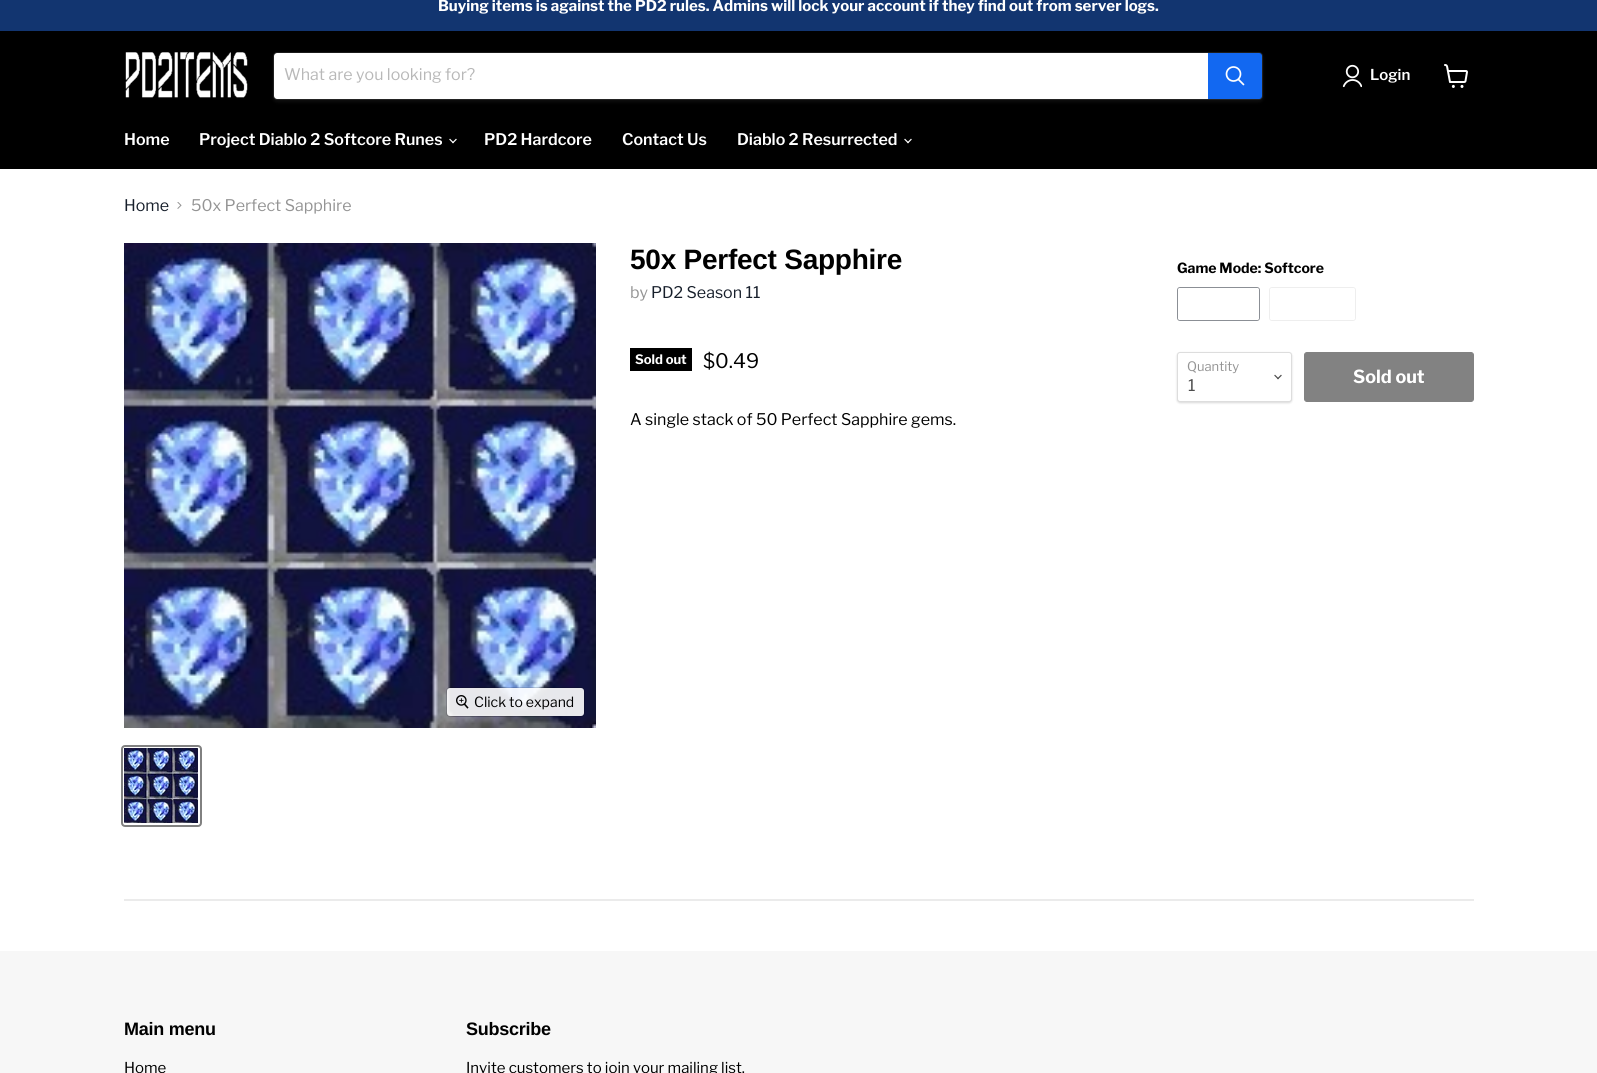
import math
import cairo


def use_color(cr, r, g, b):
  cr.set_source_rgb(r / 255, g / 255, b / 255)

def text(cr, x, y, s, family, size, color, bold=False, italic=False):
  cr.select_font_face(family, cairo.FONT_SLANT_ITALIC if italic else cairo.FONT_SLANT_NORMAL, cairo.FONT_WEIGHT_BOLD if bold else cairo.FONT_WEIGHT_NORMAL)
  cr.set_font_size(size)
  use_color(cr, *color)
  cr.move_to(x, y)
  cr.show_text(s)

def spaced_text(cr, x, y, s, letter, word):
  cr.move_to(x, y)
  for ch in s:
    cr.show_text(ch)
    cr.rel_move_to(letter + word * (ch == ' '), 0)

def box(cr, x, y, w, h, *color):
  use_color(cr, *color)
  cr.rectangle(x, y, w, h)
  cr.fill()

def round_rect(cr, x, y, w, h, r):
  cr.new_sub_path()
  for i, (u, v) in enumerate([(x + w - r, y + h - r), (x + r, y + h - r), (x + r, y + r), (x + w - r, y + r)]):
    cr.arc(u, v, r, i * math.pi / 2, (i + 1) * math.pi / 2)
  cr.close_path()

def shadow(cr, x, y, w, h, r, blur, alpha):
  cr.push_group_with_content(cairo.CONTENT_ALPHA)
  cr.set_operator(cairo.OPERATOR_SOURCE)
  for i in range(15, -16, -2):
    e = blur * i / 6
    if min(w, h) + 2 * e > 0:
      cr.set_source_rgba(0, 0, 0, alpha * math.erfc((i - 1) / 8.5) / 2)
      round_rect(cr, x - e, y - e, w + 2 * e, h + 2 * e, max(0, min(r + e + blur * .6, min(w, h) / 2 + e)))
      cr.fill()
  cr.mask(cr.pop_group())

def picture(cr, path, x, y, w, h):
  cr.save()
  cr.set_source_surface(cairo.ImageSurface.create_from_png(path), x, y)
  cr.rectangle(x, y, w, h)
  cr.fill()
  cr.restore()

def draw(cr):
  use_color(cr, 255, 255, 255)
  cr.paint()
  box(cr, 0, 0, 1597, 31, 18, 53, 112)
  box(cr, 0, 31, 1597, 138, 0, 0, 0)
  picture(cr, "img_01.png", 125, 52, 123, 46)
  use_color(cr, 128, 128, 128)
  shadow(cr, 273, 54, 990, 48, 4, 1.5, 0.11)
  round_rect(cr, 273.5, 52.5, 989, 47, 3.5)
  cr.set_source_rgba(0.502, 0.502, 0.502, 0.2)
  cr.set_line_width(1)
  cr.stroke()
  use_color(cr, 255, 255, 255)
  cr.new_path()
  cr.move_to(277, 53)
  cr.line_to(1208, 53)
  cr.line_to(1208, 99)
  cr.line_to(277, 99)
  cr.curve_to(275.5, 99, 274, 97.5, 274, 96)
  cr.line_to(274, 56)
  cr.curve_to(274, 54.5, 275.5, 53, 277, 53)
  cr.close_path()
  cr.fill()
  use_color(cr, 18, 104, 241)
  cr.new_path()
  cr.move_to(1208.5, 53.5)
  cr.line_to(1259, 53.5)
  cr.curve_to(1260.5, 53.5, 1261.5, 54.5, 1261.5, 56)
  cr.line_to(1261.5, 96)
  cr.curve_to(1261.5, 97.5, 1260.5, 98.5, 1259, 98.5)
  cr.line_to(1208.5, 98.5)
  cr.close_path()
  cr.fill_preserve()
  cr.stroke()
  cr.new_path()
  cr.move_to(1243.5, 84.5)
  cr.line_to(1238.5, 79.5)
  use_color(cr, 255, 255, 255)
  cr.set_line_width(1.7)
  cr.set_line_cap(cairo.LINE_CAP_ROUND)
  cr.stroke()
  cr.arc(1233.5, 74, 7, 0, 2 * math.pi)
  cr.set_line_cap(cairo.LINE_CAP_BUTT)
  cr.stroke()
  picture(cr, "img_02.png", 1342, 64, 20, 24)
  picture(cr, "img_03.png", 1444, 64, 24, 24)
  picture(cr, "img_04.png", 449, 138, 8, 6)
  picture(cr, "img_04.png", 904, 138, 8, 6)
  picture(cr, "img_05.png", 177, 202, 5, 7)
  box(cr, 630, 348, 62, 23, 0, 0, 0)
  round_rect(cr, 1177.5, 287.5, 82, 33, 2.5)
  use_color(cr, 139, 143, 149)
  cr.set_line_width(1)
  cr.stroke()
  use_color(cr, 255, 255, 255)
  cr.new_path()
  cr.move_to(1180, 288)
  cr.curve_to(1179, 288, 1178, 289, 1178, 290)
  cr.line_to(1178, 318)
  cr.curve_to(1178, 319, 1179, 320, 1180, 320)
  cr.line_to(1257, 320)
  cr.curve_to(1258, 320, 1259, 319, 1259, 318)
  cr.line_to(1259, 290)
  cr.curve_to(1259, 289, 1258, 288, 1257, 288)
  cr.close_path()
  cr.fill()
  round_rect(cr, 1269.5, 287.5, 86, 33, 2.5)
  use_color(cr, 238, 238, 238)
  cr.stroke()
  use_color(cr, 255, 255, 255)
  cr.new_path()
  cr.move_to(1272, 288)
  cr.curve_to(1271, 288, 1270, 289, 1270, 290)
  cr.line_to(1270, 318)
  cr.curve_to(1270, 319, 1271, 320, 1272, 320)
  cr.line_to(1353, 320)
  cr.curve_to(1354, 320, 1355, 319, 1355, 318)
  cr.line_to(1355, 290)
  cr.curve_to(1355, 289, 1354, 288, 1353, 288)
  cr.close_path()
  cr.fill()
  use_color(cr, 0, 0, 0)
  shadow(cr, 1177, 353, 115, 50, 3, 1, 0.15)
  use_color(cr, 255, 255, 255)
  round_rect(cr, 1177.5, 352.5, 114, 49, 2.5)
  cr.fill_preserve()
  use_color(cr, 221, 221, 221)
  cr.stroke()
  picture(cr, "img_06.png", 1274, 374, 8, 6)
  use_color(cr, 130, 130, 130)
  round_rect(cr, 1304.5, 352.5, 169, 49, 2.5)
  cr.fill_preserve()
  cr.stroke()
  picture(cr, "img_07.png", 124, 243, 472, 485)
  round_rect(cr, 446.5, 687.5, 138, 29, 3.5)
  cr.set_source_rgba(0, 0, 0, 0.15)
  cr.stroke()
  cr.set_source_rgba(1, 1, 1, 0.9)
  round_rect(cr, 447, 688, 137, 28, 3)
  cr.fill()
  picture(cr, "img_08.png", 456, 695, 13, 14)
  round_rect(cr, 122, 746, 79, 80, 3)
  use_color(cr, 129, 129, 129)
  cr.set_line_width(2)
  cr.stroke()
  picture(cr, "img_09.png", 124, 748, 74, 75)
  box(cr, 124, 899, 1350, 2, 235, 235, 235)
  box(cr, 0, 951, 1597, 122, 247, 247, 247)
  text(cr, 438, 11, "Buying items is against the PD2 rules. Admins will lock your account if they find out from server logs.", "Libre Franklin", 15, (255, 255, 255), bold=True)
  text(cr, 284, 80, "What are you looking for?", "Libre Franklin", 16, (184, 184, 184))
  text(cr, 1370, 80, "Login", "Libre Franklin SemiBold", 15, (255, 255, 255))
  text(cr, 124, 145, "Home", "Libre Franklin SemiBold", 16, (255, 255, 255))
  text(cr, 199, 145, "Project Diablo 2 Softcore Runes", "Libre Franklin SemiBold", 16, (255, 255, 255))
  text(cr, 484, 145, "PD2 Hardcore", "Libre Franklin SemiBold", 16, (255, 255, 255))
  text(cr, 622, 145, "Contact Us", "Libre Franklin SemiBold", 16, (255, 255, 255))
  text(cr, 737, 145, "Diablo 2 Resurrected", "Libre Franklin SemiBold", 16, (255, 255, 255))
  text(cr, 124, 211, "Home", "Libre Franklin", 16, (23, 31, 43))
  text(cr, 191, 211, "50x Perfect Sapphire", "Libre Franklin", 16, (148, 148, 148))
  cr.select_font_face("Arimo", cairo.FONT_SLANT_NORMAL, cairo.FONT_WEIGHT_BOLD)
  cr.set_font_size(28)
  use_color(cr, 0, 0, 0)
  spaced_text(cr, 630, 269, "50x Perfect Sapphire", -0.25, 0)
  text(cr, 630, 298, "by", "Libre Franklin", 16, (148, 148, 148))
  text(cr, 651, 298, "PD2 Season 11", "Libre Franklin", 16, (23, 31, 43))
  text(cr, 635, 364, "Sold out", "Libre Franklin", 13, (255, 255, 255), bold=True)
  text(cr, 703, 368, "$0.49", "Libre Franklin", 20, (0, 0, 0))
  text(cr, 630, 425, "A single stack of 50 Perfect Sapphire gems.", "Libre Franklin", 16, (0, 0, 0))
  text(cr, 1177, 273, "Game Mode: Softcore", "Libre Franklin", 14, (0, 0, 0), bold=True)
  text(cr, 1187, 371, "Quantity", "Libre Franklin", 13, (148, 148, 148))
  text(cr, 1188, 391, "1", "Libre Franklin", 16, (77, 77, 77))
  text(cr, 1353, 383, "Sold out", "Libre Franklin", 18, (255, 255, 255), bold=True)
  text(cr, 474, 707, "Click to expand", "Libre Franklin", 14, (0, 0, 0))
  cr.select_font_face("Arimo", cairo.FONT_SLANT_NORMAL, cairo.FONT_WEIGHT_BOLD)
  cr.set_font_size(18)
  spaced_text(cr, 124, 1035, "Main menu", -0.25, 0)
  text(cr, 124, 1073, "Home", "Libre Franklin", 15, (0, 0, 0))
  cr.select_font_face("Arimo", cairo.FONT_SLANT_NORMAL, cairo.FONT_WEIGHT_BOLD)
  cr.set_font_size(18)
  spaced_text(cr, 466, 1035, "Subscribe", -0.25, 0)
  text(cr, 466, 1073, "Invite customers to join your mailing list.", "Libre Franklin", 15, (0, 0, 0))


surface = cairo.ImageSurface(cairo.FORMAT_RGB24, 1597, 1073)
cr = cairo.Context(surface)
options = cairo.FontOptions()
options.set_hint_metrics(cairo.HINT_METRICS_OFF)
options.set_hint_style(cairo.HINT_STYLE_NONE)
cr.set_font_options(options)
cr.set_miter_limit(4)
draw(cr)
surface.write_to_png("out.png")
